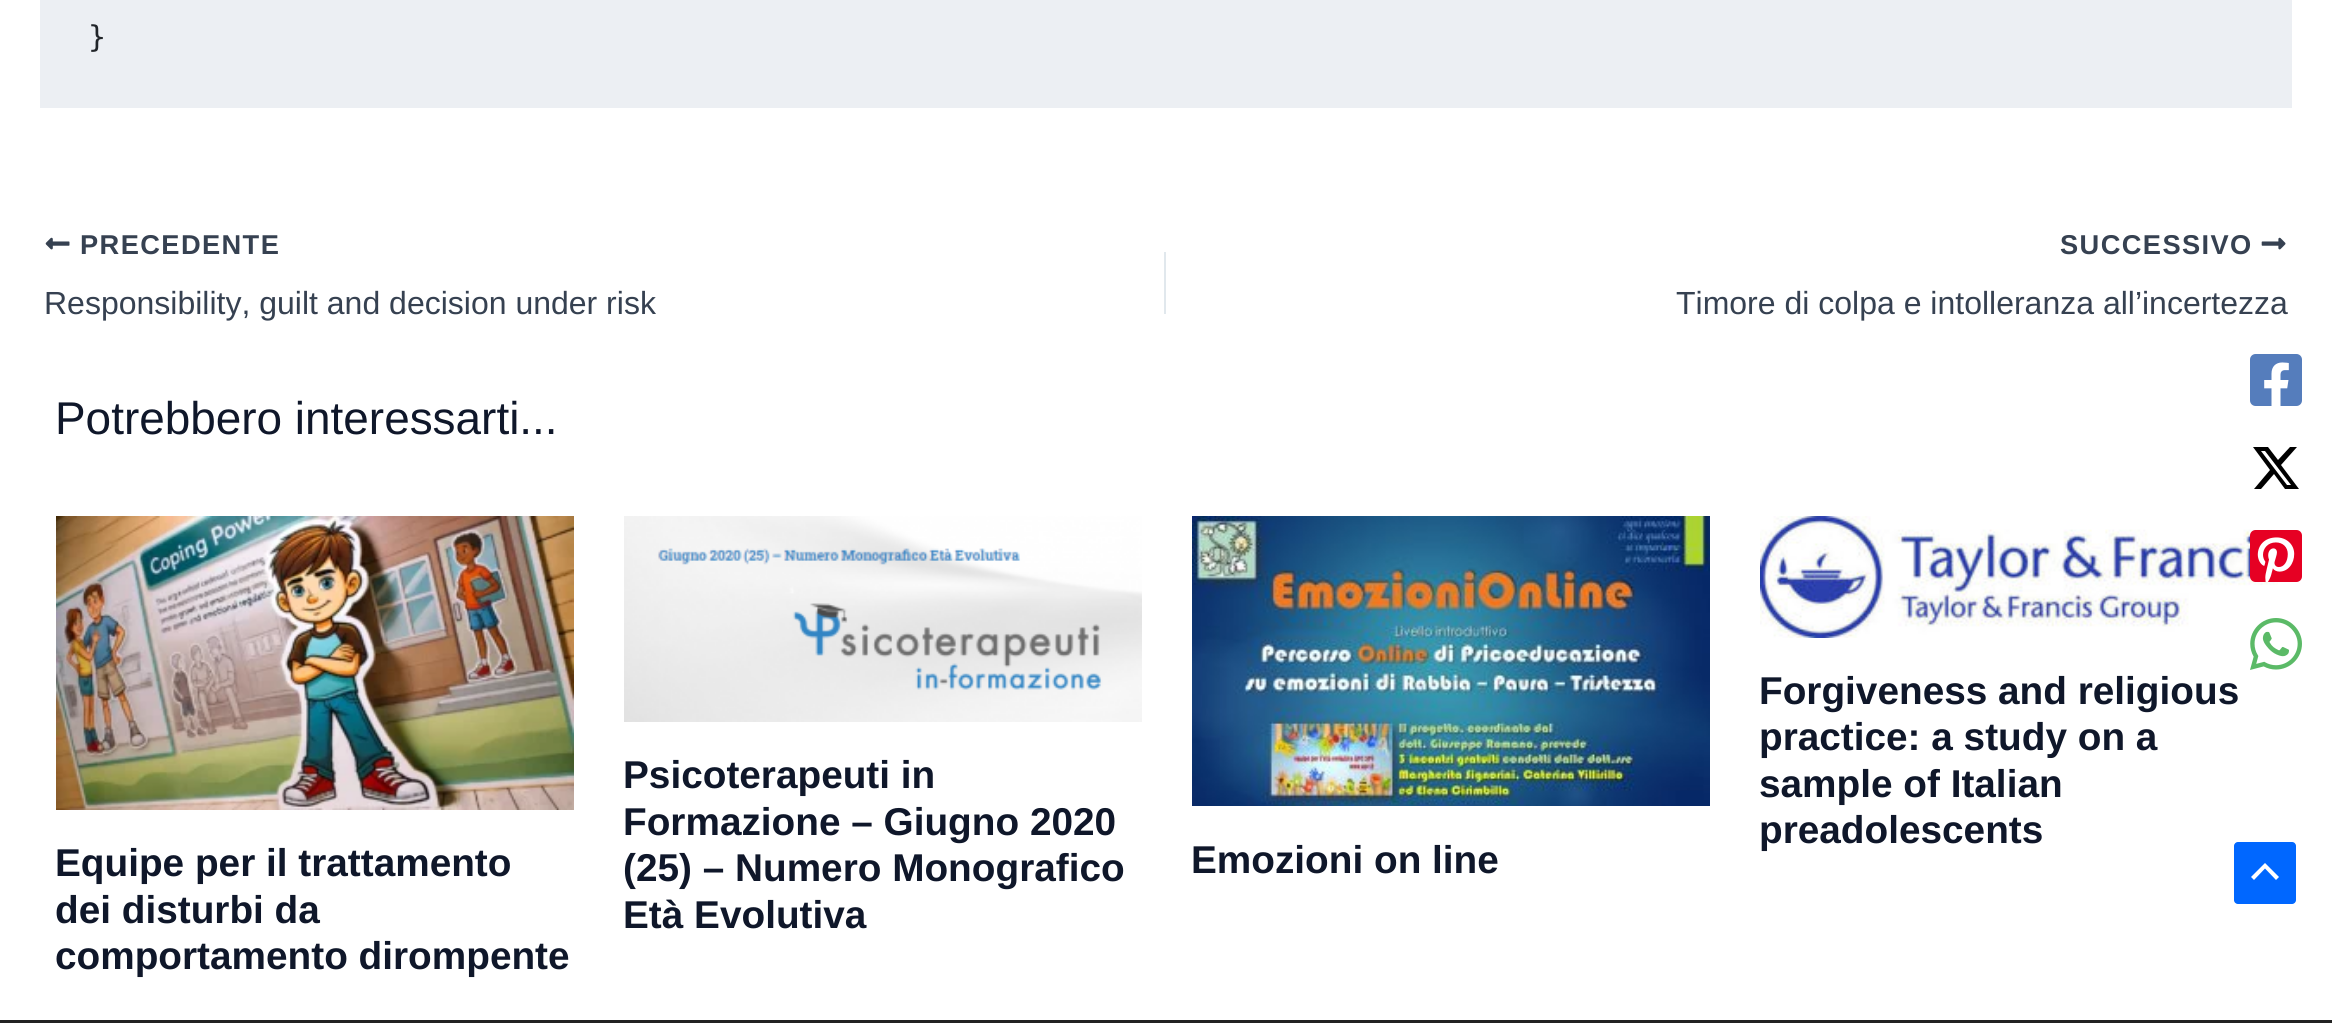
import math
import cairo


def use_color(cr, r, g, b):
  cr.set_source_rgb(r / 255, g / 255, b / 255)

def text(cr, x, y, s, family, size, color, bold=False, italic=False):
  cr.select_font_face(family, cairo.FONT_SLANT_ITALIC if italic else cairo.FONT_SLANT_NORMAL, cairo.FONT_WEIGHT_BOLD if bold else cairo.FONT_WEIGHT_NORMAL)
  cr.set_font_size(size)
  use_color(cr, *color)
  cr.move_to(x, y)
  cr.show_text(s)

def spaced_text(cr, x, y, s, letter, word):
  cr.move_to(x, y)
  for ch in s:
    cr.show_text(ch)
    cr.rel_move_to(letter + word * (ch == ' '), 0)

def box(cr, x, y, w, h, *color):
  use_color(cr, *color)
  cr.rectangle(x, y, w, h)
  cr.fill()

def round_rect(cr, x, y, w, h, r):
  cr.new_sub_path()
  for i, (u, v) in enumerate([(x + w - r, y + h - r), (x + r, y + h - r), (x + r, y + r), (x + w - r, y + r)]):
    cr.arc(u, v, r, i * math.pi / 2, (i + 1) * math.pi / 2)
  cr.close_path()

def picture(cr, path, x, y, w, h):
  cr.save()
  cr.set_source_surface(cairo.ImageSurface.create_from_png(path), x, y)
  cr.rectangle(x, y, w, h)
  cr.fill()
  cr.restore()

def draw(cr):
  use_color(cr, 255, 255, 255)
  cr.paint()
  box(cr, 40, 0, 2252, 108, 236, 239, 243)
  picture(cr, "img_01.png", 2250, 354, 52, 52)
  use_color(cr, 0, 0, 0)
  cr.new_path()
  cr.move_to(2290, 447)
  cr.line_to(2297, 447)
  cr.line_to(2281, 465)
  cr.line_to(2299, 489)
  cr.line_to(2285, 489)
  cr.line_to(2274, 474)
  cr.line_to(2261, 489)
  cr.line_to(2254, 489)
  cr.line_to(2270, 470)
  cr.line_to(2253, 447)
  cr.line_to(2268, 447)
  cr.line_to(2278, 460)
  cr.close_path()
  cr.move_to(2287, 485)
  cr.line_to(2291, 485)
  cr.line_to(2265, 451)
  cr.line_to(2261, 451)
  cr.close_path()
  cr.fill()
  picture(cr, "img_09.png", 1760, 516, 518, 122)
  picture(cr, "img_02.png", 2250, 530, 52, 52)
  picture(cr, "img_03.png", 2250, 618, 52, 52)
  picture(cr, "img_04.png", 45, 237, 25, 13)
  box(cr, 1164, 252, 2, 62, 225, 232, 237)
  picture(cr, "img_05.png", 2261, 237, 25, 13)
  picture(cr, "img_06.png", 56, 516, 518, 294)
  picture(cr, "img_07.png", 624, 516, 518, 206)
  picture(cr, "img_08.png", 1192, 516, 518, 290)
  box(cr, 0, 1020, 2332, 3, 34, 34, 34)
  use_color(cr, 0, 103, 255)
  round_rect(cr, 2234, 842, 62, 62, 4)
  cr.fill()
  use_color(cr, 255, 255, 255)
  cr.new_path()
  cr.move_to(2279, 877)
  cr.line_to(2265, 863)
  cr.line_to(2251, 877)
  cr.line_to(2254, 880)
  cr.line_to(2265, 868.5)
  cr.line_to(2276, 880)
  cr.close_path()
  cr.fill()
  text(cr, 88, 47, "}", "DejaVu Sans Mono", 30, (33, 37, 41))
  cr.select_font_face("Liberation Sans", cairo.FONT_SLANT_NORMAL, cairo.FONT_WEIGHT_BOLD)
  cr.set_font_size(27.25)
  use_color(cr, 54, 65, 81)
  spaced_text(cr, 80, 254, "PRECEDENTE", 1.4, 0)
  text(cr, 44, 314, "Responsibility, guilt and decision under risk", "Liberation Sans", 32, (54, 65, 81))
  cr.select_font_face("Liberation Sans", cairo.FONT_SLANT_NORMAL, cairo.FONT_WEIGHT_BOLD)
  cr.set_font_size(27.25)
  spaced_text(cr, 2060, 254, "SUCCESSIVO", 1.4, 0)
  text(cr, 1676, 314, "Timore di colpa e intolleranza all’incertezza", "Liberation Sans", 32, (54, 65, 81))
  text(cr, 55, 434, "Potrebbero interessarti...", "Liberation Sans", 45.9, (15, 23, 42))
  text(cr, 55, 876, "Equipe per il trattamento", "Liberation Sans", 38.75, (15, 23, 42), bold=True)
  text(cr, 55, 923, "dei disturbi da", "Liberation Sans", 38.75, (15, 23, 42), bold=True)
  text(cr, 55, 969, "comportamento dirompente", "Liberation Sans", 38.75, (15, 23, 42), bold=True)
  text(cr, 623, 788, "Psicoterapeuti in", "Liberation Sans", 38.75, (15, 23, 42), bold=True)
  text(cr, 623, 835, "Formazione – Giugno 2020", "Liberation Sans", 38.75, (15, 23, 42), bold=True)
  text(cr, 623, 881, "(25) – Numero Monografico", "Liberation Sans", 38.75, (15, 23, 42), bold=True)
  text(cr, 623, 928, "Età Evolutiva", "Liberation Sans", 38.75, (15, 23, 42), bold=True)
  text(cr, 1191, 873, "Emozioni on line", "Liberation Sans", 38.75, (15, 23, 42), bold=True)
  text(cr, 1759, 704, "Forgiveness and religious", "Liberation Sans", 38.75, (15, 23, 42), bold=True)
  text(cr, 1759, 750, "practice: a study on a", "Liberation Sans", 38.75, (15, 23, 42), bold=True)
  text(cr, 1759, 797, "sample of Italian", "Liberation Sans", 38.75, (15, 23, 42), bold=True)
  text(cr, 1759, 843, "preadolescents", "Liberation Sans", 38.75, (15, 23, 42), bold=True)


surface = cairo.ImageSurface(cairo.FORMAT_RGB24, 2332, 1023)
cr = cairo.Context(surface)
options = cairo.FontOptions()
options.set_hint_metrics(cairo.HINT_METRICS_OFF)
options.set_hint_style(cairo.HINT_STYLE_NONE)
cr.set_font_options(options)
cr.set_miter_limit(4)
draw(cr)
surface.write_to_png("out.png")
